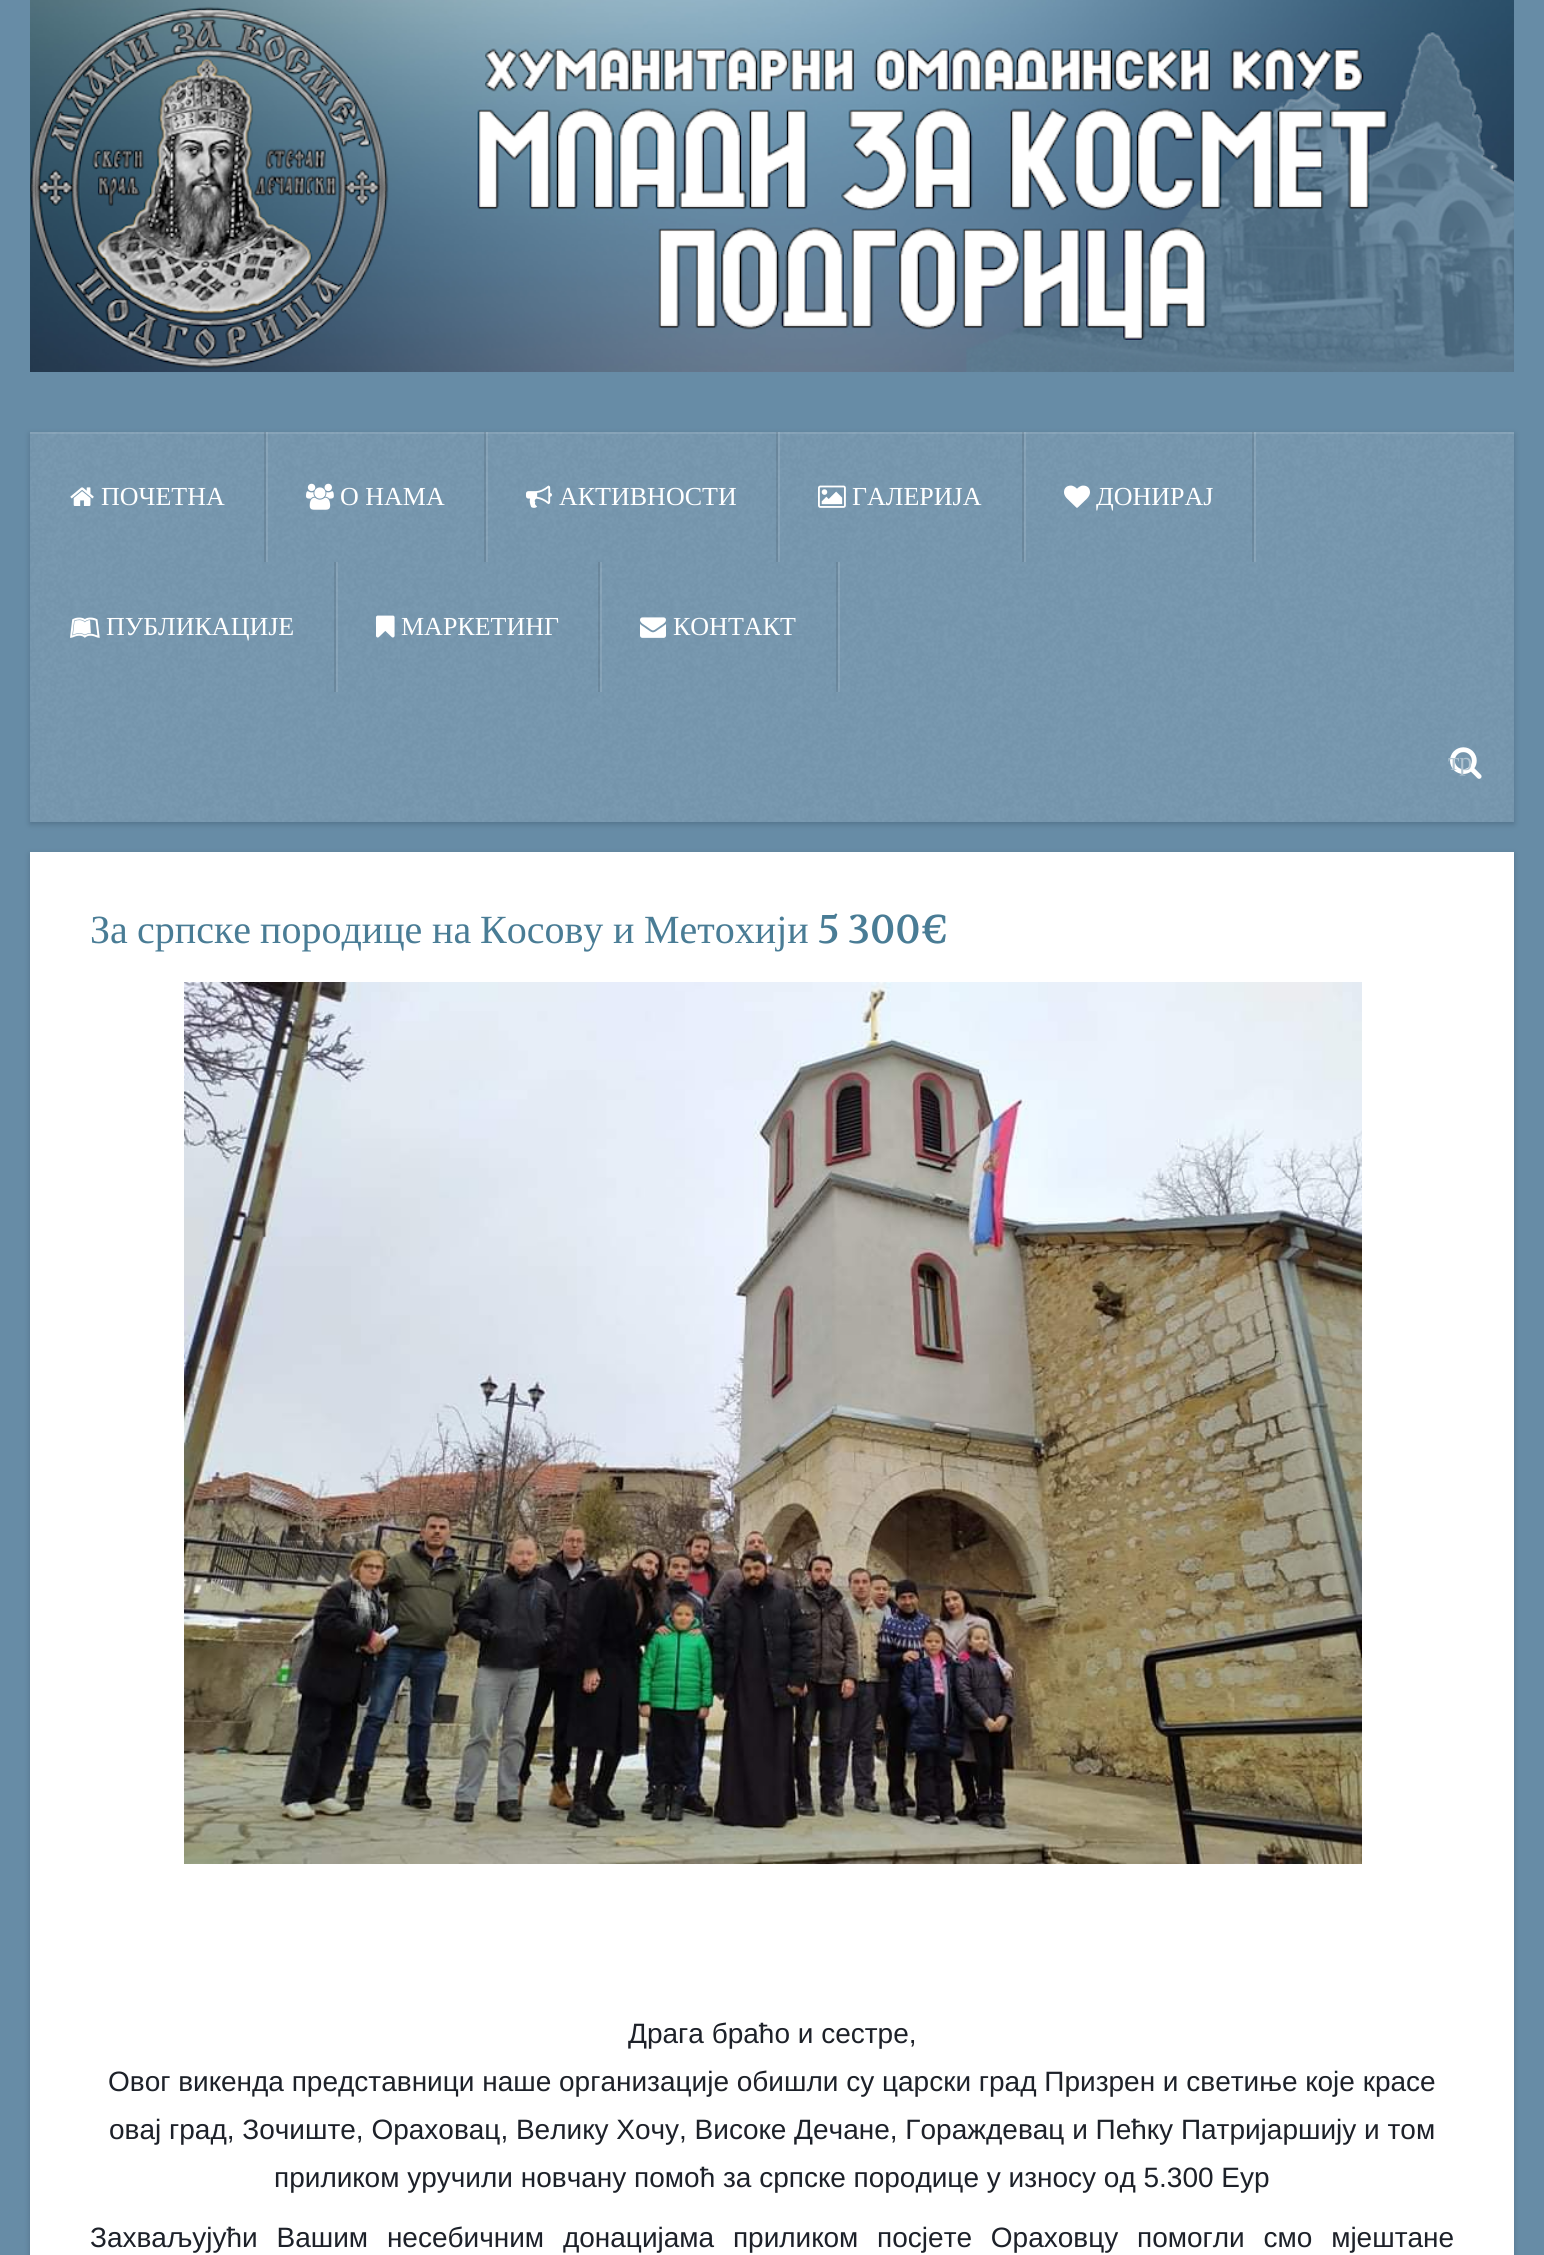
import math
import cairo


def use_color(cr, r, g, b):
  cr.set_source_rgb(r / 255, g / 255, b / 255)

def text(cr, x, y, s, family, size, color, bold=False, italic=False):
  cr.select_font_face(family, cairo.FONT_SLANT_ITALIC if italic else cairo.FONT_SLANT_NORMAL, cairo.FONT_WEIGHT_BOLD if bold else cairo.FONT_WEIGHT_NORMAL)
  cr.set_font_size(size)
  use_color(cr, *color)
  cr.move_to(x, y)
  cr.show_text(s)

def spaced_text(cr, x, y, s, letter, word):
  cr.move_to(x, y)
  for ch in s:
    cr.show_text(ch)
    cr.rel_move_to(letter + word * (ch == ' '), 0)

def box(cr, x, y, w, h, *color):
  use_color(cr, *color)
  cr.rectangle(x, y, w, h)
  cr.fill()

def round_rect(cr, x, y, w, h, r):
  cr.new_sub_path()
  for i, (u, v) in enumerate([(x + w - r, y + h - r), (x + r, y + h - r), (x + r, y + r), (x + w - r, y + r)]):
    cr.arc(u, v, r, i * math.pi / 2, (i + 1) * math.pi / 2)
  cr.close_path()

def shadow(cr, x, y, w, h, r, blur, alpha):
  cr.push_group_with_content(cairo.CONTENT_ALPHA)
  cr.set_operator(cairo.OPERATOR_SOURCE)
  for i in range(15, -16, -2):
    e = blur * i / 6
    if min(w, h) + 2 * e > 0:
      cr.set_source_rgba(0, 0, 0, alpha * math.erfc((i - 1) / 8.5) / 2)
      round_rect(cr, x - e, y - e, w + 2 * e, h + 2 * e, max(0, min(r + e + blur * .6, min(w, h) / 2 + e)))
      cr.fill()
  cr.mask(cr.pop_group())

def picture(cr, path, x, y, w, h):
  cr.save()
  cr.set_source_surface(cairo.ImageSurface.create_from_png(path), x, y)
  cr.rectangle(x, y, w, h)
  cr.fill()
  cr.restore()

def draw(cr):
  use_color(cr, 103, 140, 166)
  cr.paint()
  picture(cr, "img_01.png", 30, 0, 1484, 372)
  use_color(cr, 30, 50, 70)
  shadow(cr, 30, 434, 1484, 390, 0, 3, 0.3)
  box(cr, 30, 432, 1484, 390, 119, 152, 176)
  picture(cr, "img_02.png", 30, 432, 1484, 390)
  cr.set_source_rgba(1, 1, 1, 0.12)
  cr.rectangle(30, 432, 1484, 2)
  cr.fill()
  cr.rectangle(266, 432, 2, 130)
  cr.fill()
  cr.set_source_rgba(0, 0, 0, 0.1)
  cr.rectangle(264, 432, 2, 130)
  cr.fill()
  picture(cr, "img_03.png", 70, 487, 24, 19)
  cr.set_source_rgba(1, 1, 1, 0.12)
  cr.rectangle(486, 432, 2, 130)
  cr.fill()
  cr.set_source_rgba(0, 0, 0, 0.1)
  cr.rectangle(484, 432, 2, 130)
  cr.fill()
  picture(cr, "img_04.png", 306, 483, 28, 27)
  cr.set_source_rgba(1, 1, 1, 0.12)
  cr.rectangle(778, 432, 2, 130)
  cr.fill()
  cr.set_source_rgba(0, 0, 0, 0.1)
  cr.rectangle(776, 432, 2, 130)
  cr.fill()
  picture(cr, "img_05.png", 526, 485, 26, 23)
  cr.set_source_rgba(1, 1, 1, 0.12)
  cr.rectangle(1024, 432, 2, 130)
  cr.fill()
  cr.set_source_rgba(0, 0, 0, 0.1)
  cr.rectangle(1022, 432, 2, 130)
  cr.fill()
  picture(cr, "img_06.png", 818, 485, 28, 23)
  cr.set_source_rgba(1, 1, 1, 0.12)
  cr.rectangle(1254, 432, 2, 130)
  cr.fill()
  cr.set_source_rgba(0, 0, 0, 0.1)
  cr.rectangle(1252, 432, 2, 130)
  cr.fill()
  picture(cr, "img_07.png", 1064, 485, 26, 23)
  cr.set_source_rgba(1, 1, 1, 0.12)
  cr.rectangle(336, 562, 2, 130)
  cr.fill()
  cr.set_source_rgba(0, 0, 0, 0.1)
  cr.rectangle(334, 562, 2, 130)
  cr.fill()
  picture(cr, "img_08.png", 70, 617, 30, 21)
  cr.set_source_rgba(1, 1, 1, 0.12)
  cr.rectangle(600, 562, 2, 130)
  cr.fill()
  cr.set_source_rgba(0, 0, 0, 0.1)
  cr.rectangle(598, 562, 2, 130)
  cr.fill()
  picture(cr, "img_09.png", 376, 615, 19, 23)
  cr.set_source_rgba(1, 1, 1, 0.12)
  cr.rectangle(838, 562, 2, 130)
  cr.fill()
  cr.set_source_rgba(0, 0, 0, 0.1)
  cr.rectangle(836, 562, 2, 130)
  cr.fill()
  picture(cr, "img_10.png", 640, 617, 26, 21)
  picture(cr, "img_11.png", 1450, 747, 32, 32)
  use_color(cr, 30, 50, 70)
  shadow(cr, 30, 854, 1484, 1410, 0, 3, 0.3)
  box(cr, 30, 852, 1484, 1403, 255, 255, 255)
  picture(cr, "img_12.png", 184, 982, 1178, 882)
  text(cr, 101, 505, "ПОЧЕТНА", "Liberation Serif", 26, (255, 255, 255))
  text(cr, 340, 505, "О НАМА", "Liberation Serif", 26, (255, 255, 255))
  text(cr, 559, 505, "АКТИВНОСТИ", "Liberation Serif", 26, (255, 255, 255))
  text(cr, 852, 505, "ГАЛЕРИЈА", "Liberation Serif", 26, (255, 255, 255))
  text(cr, 1096, 505, "ДОНИРАЈ", "Liberation Serif", 26, (255, 255, 255))
  text(cr, 106, 635, "ПУБЛИКАЦИЈЕ", "Liberation Serif", 26, (255, 255, 255))
  text(cr, 401, 635, "МАРКЕТИНГ", "Liberation Serif", 26, (255, 255, 255))
  text(cr, 673, 635, "КОНТАКТ", "Liberation Serif", 26, (255, 255, 255))
  text(cr, 1448, 770, "тр", "Liberation Serif", 26, (176, 195, 208))
  text(cr, 90, 943, "За", "Liberation Serif", 40, (73, 124, 149))
  text(cr, 137, 943, "српске", "Liberation Serif", 40, (73, 124, 149))
  text(cr, 260, 943, "породице", "Liberation Serif", 40, (73, 124, 149))
  text(cr, 432, 943, "на", "Liberation Serif", 40, (73, 124, 149))
  text(cr, 480, 943, "Косову", "Liberation Serif", 40, (73, 124, 149))
  text(cr, 613, 943, "и", "Liberation Serif", 40, (73, 124, 149))
  text(cr, 644, 943, "Метохији", "Liberation Serif", 40, (73, 124, 149))
  text(cr, 818, 943, "5 300€", "Volkhov", 40, (73, 124, 149))
  text(cr, 628, 2043, "Драга браћо и сестре,", "Liberation Sans", 28, (29, 33, 41))
  text(cr, 108, 2091, "Овог викенда представници наше организације обишли су царски град Призрен и светиње које красе", "Liberation Sans", 28, (29, 33, 41))
  text(cr, 109, 2139, "овај град, Зочиште, Ораховац, Велику Хочу, Високе Дечане, Гораждевац и Пећку Патријаршију и том", "Liberation Sans", 28, (29, 33, 41))
  text(cr, 274, 2187, "приликом уручили новчану помоћ за српске породице у износу од 5.300 Еур", "Liberation Sans", 28, (29, 33, 41))
  spaced_text(cr, 90, 2247, "Захваљујући Вашим несебичним донацијама приликом посјете Ораховцу помогли смо мјештане", 0, 11)


surface = cairo.ImageSurface(cairo.FORMAT_RGB24, 1544, 2255)
cr = cairo.Context(surface)
options = cairo.FontOptions()
options.set_hint_metrics(cairo.HINT_METRICS_OFF)
options.set_hint_style(cairo.HINT_STYLE_NONE)
cr.set_font_options(options)
cr.set_miter_limit(4)
draw(cr)
surface.write_to_png("out.png")
